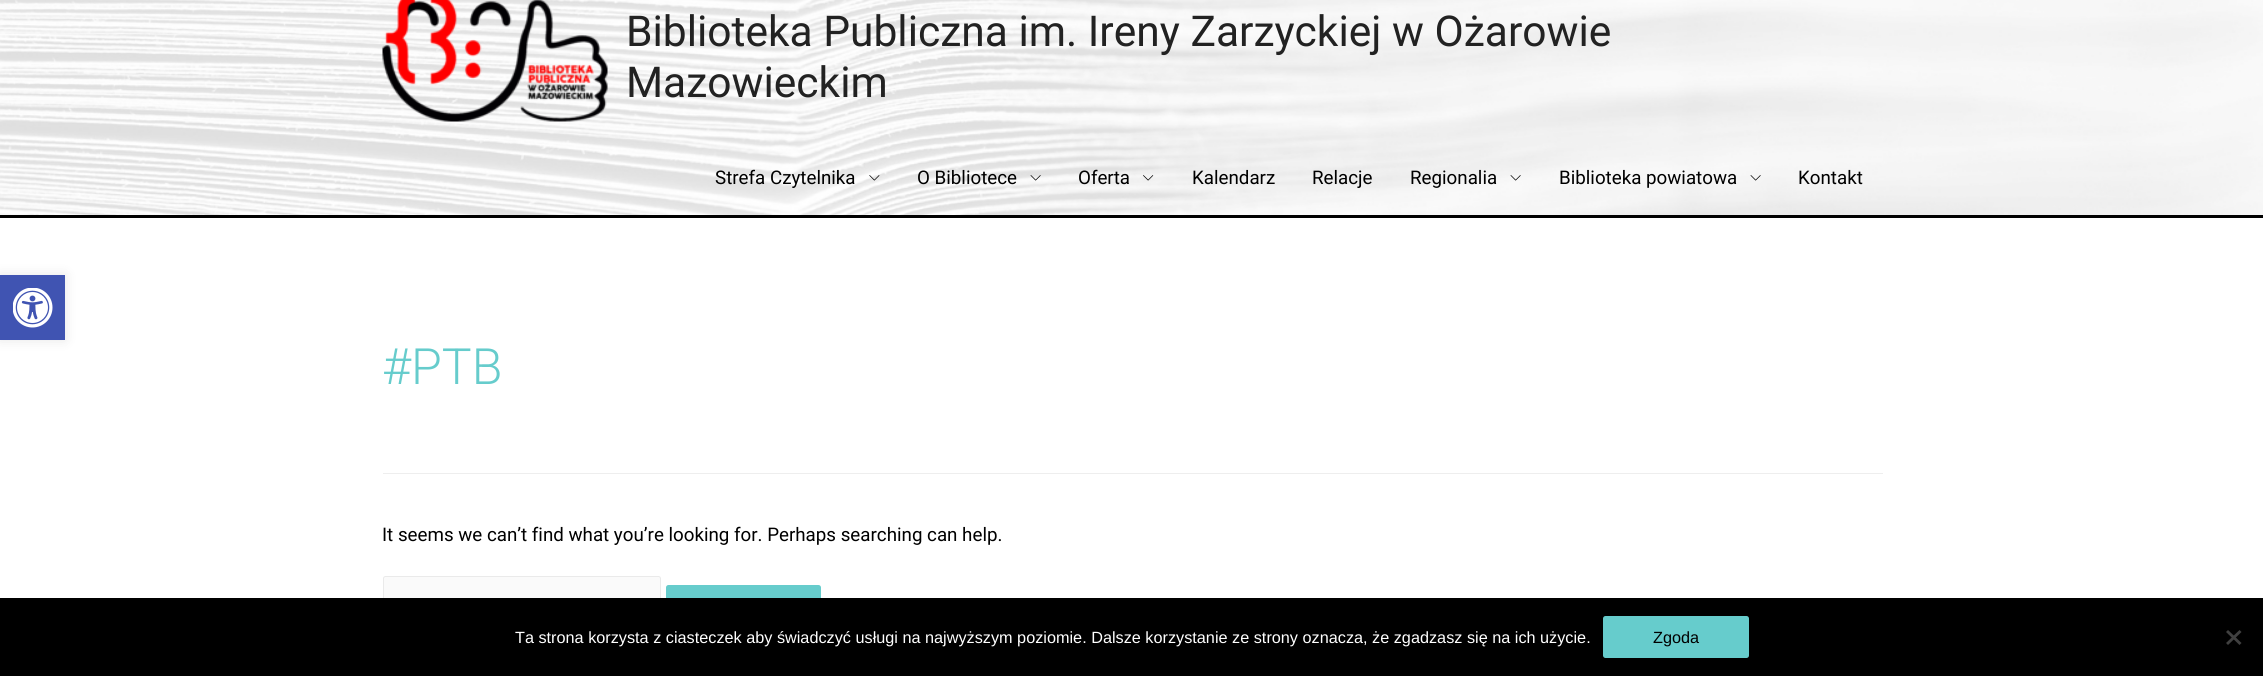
import math
import cairo


def use_color(cr, r, g, b):
  cr.set_source_rgb(r / 255, g / 255, b / 255)

def text(cr, x, y, s, family, size, color, bold=False, italic=False):
  cr.select_font_face(family, cairo.FONT_SLANT_ITALIC if italic else cairo.FONT_SLANT_NORMAL, cairo.FONT_WEIGHT_BOLD if bold else cairo.FONT_WEIGHT_NORMAL)
  cr.set_font_size(size)
  use_color(cr, *color)
  cr.move_to(x, y)
  cr.show_text(s)

def box(cr, x, y, w, h, *color):
  use_color(cr, *color)
  cr.rectangle(x, y, w, h)
  cr.fill()

def round_rect(cr, x, y, w, h, r):
  cr.new_sub_path()
  for i, (u, v) in enumerate([(x + w - r, y + h - r), (x + r, y + h - r), (x + r, y + r), (x + w - r, y + r)]):
    cr.arc(u, v, r, i * math.pi / 2, (i + 1) * math.pi / 2)
  cr.close_path()

def shadow(cr, x, y, w, h, r, blur, alpha):
  cr.push_group_with_content(cairo.CONTENT_ALPHA)
  cr.set_operator(cairo.OPERATOR_SOURCE)
  for i in range(15, -16, -2):
    e = blur * i / 6
    if min(w, h) + 2 * e > 0:
      cr.set_source_rgba(0, 0, 0, alpha * math.erfc((i - 1) / 8.5) / 2)
      round_rect(cr, x - e, y - e, w + 2 * e, h + 2 * e, max(0, min(r + e + blur * .6, min(w, h) / 2 + e)))
      cr.fill()
  cr.mask(cr.pop_group())

def picture(cr, path, x, y, w, h):
  cr.save()
  cr.set_source_surface(cairo.ImageSurface.create_from_png(path), x, y)
  cr.rectangle(x, y, w, h)
  cr.fill()
  cr.restore()

def draw(cr):
  use_color(cr, 255, 255, 255)
  cr.paint()
  use_color(cr, 0, 0, 0)
  shadow(cr, 0, 275, 65, 65, 0, 6, 0.1)
  box(cr, 0, 275, 65, 65, 64, 84, 178)
  picture(cr, "img_01.png", 13, 288, 40, 40)
  picture(cr, "img_02.png", 0, 0, 2263, 215)
  box(cr, 0, 215, 2263, 3, 0, 0, 0)
  picture(cr, "img_03.png", 382, 0, 226, 122)
  picture(cr, "img_04.png", 869, 175, 11, 6)
  picture(cr, "img_05.png", 1030, 175, 11, 6)
  picture(cr, "img_06.png", 1143, 175, 11, 6)
  picture(cr, "img_07.png", 1510, 175, 11, 6)
  picture(cr, "img_08.png", 1750, 175, 11, 6)
  box(cr, 383, 473, 1500, 1, 238, 238, 238)
  use_color(cr, 250, 250, 250)
  round_rect(cr, 383.5, 576.5, 277, 58, 2)
  cr.fill_preserve()
  use_color(cr, 234, 234, 234)
  cr.set_line_width(1)
  cr.stroke()
  use_color(cr, 102, 204, 204)
  round_rect(cr, 666, 585, 155, 44, 2.5)
  cr.fill()
  box(cr, 0, 598, 2263, 78, 0, 0, 0)
  use_color(cr, 102, 204, 204)
  round_rect(cr, 1603, 616, 146, 42, 2.5)
  cr.fill()
  use_color(cr, 64, 64, 64)
  cr.new_path()
  cr.move_to(2239.5, 630)
  cr.line_to(2241.5, 632)
  cr.line_to(2228, 645)
  cr.line_to(2226, 643)
  cr.close_path()
  cr.fill()
  cr.new_path()
  cr.move_to(2226, 632)
  cr.line_to(2228, 630)
  cr.line_to(2241.5, 643)
  cr.line_to(2239.5, 645)
  cr.close_path()
  cr.fill()
  text(cr, 626, 46, "Biblioteka Publiczna im. Ireny Zarzyckiej w Ożarowie", "Roboto", 42.5, (34, 34, 34))
  text(cr, 626, 97, "Mazowieckim", "Roboto", 42.5, (34, 34, 34))
  text(cr, 715, 184, "Strefa Czytelnika", "Roboto", 18.75, (0, 0, 0))
  text(cr, 917, 184, "O Bibliotece", "Roboto", 18.75, (0, 0, 0))
  text(cr, 1078, 184, "Oferta", "Roboto", 18.75, (0, 0, 0))
  text(cr, 1192, 184, "Kalendarz", "Roboto", 18.75, (0, 0, 0))
  text(cr, 1312, 184, "Relacje", "Roboto", 18.75, (0, 0, 0))
  text(cr, 1410, 184, "Regionalia", "Roboto", 18.75, (0, 0, 0))
  text(cr, 1559, 184, "Biblioteka powiatowa", "Roboto", 18.75, (0, 0, 0))
  text(cr, 1798, 184, "Kontakt", "Roboto", 18.75, (0, 0, 0))
  text(cr, 382, 384, "#PTB", "Roboto Light", 50, (102, 204, 204))
  text(cr, 382, 541, "It seems we can’t find what you’re looking for. Perhaps searching can help.", "Roboto", 18.75, (0, 0, 0))
  text(cr, 515, 643, "Ta strona korzysta z ciasteczek aby świadczyć usługi na najwyższym poziomie. Dalsze korzystanie ze strony oznacza, że zgadzasz się na ich użycie.", "Liberation Sans", 16.25, (255, 255, 255))
  text(cr, 1653, 643, "Zgoda", "Liberation Sans", 16.25, (0, 0, 0))


surface = cairo.ImageSurface(cairo.FORMAT_RGB24, 2263, 676)
cr = cairo.Context(surface)
options = cairo.FontOptions()
options.set_hint_metrics(cairo.HINT_METRICS_OFF)
options.set_hint_style(cairo.HINT_STYLE_NONE)
cr.set_font_options(options)
cr.set_miter_limit(4)
draw(cr)
surface.write_to_png("out.png")
